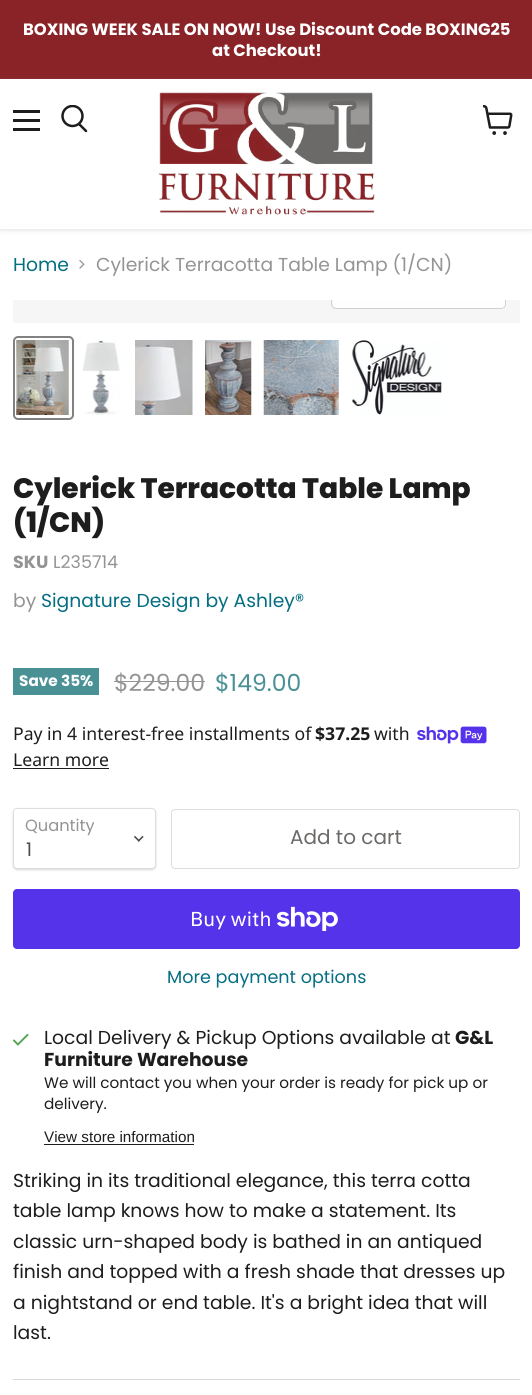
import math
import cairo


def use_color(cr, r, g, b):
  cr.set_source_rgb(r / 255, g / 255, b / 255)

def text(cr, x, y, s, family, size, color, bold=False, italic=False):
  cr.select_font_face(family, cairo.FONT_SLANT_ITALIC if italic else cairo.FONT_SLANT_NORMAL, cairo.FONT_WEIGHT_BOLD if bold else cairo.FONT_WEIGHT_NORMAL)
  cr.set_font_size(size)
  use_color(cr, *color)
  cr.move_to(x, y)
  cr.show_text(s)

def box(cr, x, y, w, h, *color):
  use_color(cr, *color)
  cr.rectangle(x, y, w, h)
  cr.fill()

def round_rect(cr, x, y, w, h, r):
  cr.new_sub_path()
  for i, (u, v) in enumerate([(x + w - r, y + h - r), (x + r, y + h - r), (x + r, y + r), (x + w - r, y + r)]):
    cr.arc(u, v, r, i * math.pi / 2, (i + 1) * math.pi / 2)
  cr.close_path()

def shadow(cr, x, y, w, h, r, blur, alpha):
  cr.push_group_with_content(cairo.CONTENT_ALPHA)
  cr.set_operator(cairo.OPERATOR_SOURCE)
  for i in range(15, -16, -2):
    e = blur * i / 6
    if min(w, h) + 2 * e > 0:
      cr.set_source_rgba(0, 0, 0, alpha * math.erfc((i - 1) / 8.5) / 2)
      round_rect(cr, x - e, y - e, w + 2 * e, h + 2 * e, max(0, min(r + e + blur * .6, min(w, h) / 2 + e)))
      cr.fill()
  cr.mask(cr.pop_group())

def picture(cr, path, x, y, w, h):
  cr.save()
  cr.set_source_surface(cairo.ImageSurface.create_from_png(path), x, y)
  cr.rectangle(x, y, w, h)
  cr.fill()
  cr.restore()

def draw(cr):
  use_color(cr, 255, 255, 255)
  cr.paint()
  box(cr, 0, 0, 532, 79, 138, 35, 40)
  use_color(cr, 128, 128, 128)
  shadow(cr, 0, 80, 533, 150, 0, 2.5, 0.25)
  box(cr, 0, 79, 532, 150, 255, 255, 255)
  box(cr, 13, 110, 27, 3, 29, 29, 29)
  box(cr, 13, 119, 27, 3, 29, 29, 29)
  box(cr, 13, 128, 27, 3, 29, 29, 29)
  cr.new_path()
  cr.move_to(86, 131)
  cr.line_to(79.5, 124.5)
  cr.set_line_width(2.5)
  cr.set_line_cap(cairo.LINE_CAP_ROUND)
  cr.stroke()
  cr.save()
  cr.rectangle(60, 105, 29, 30)
  cr.clip()
  cr.arc(72.5, 116, 10, 0, 2 * math.pi)
  cr.set_line_cap(cairo.LINE_CAP_BUTT)
  cr.stroke()
  cr.restore()
  picture(cr, "img_01.png", 158, 92, 217, 123)
  picture(cr, "img_02.png", 483, 105, 30, 30)
  picture(cr, "img_03.png", 79, 260, 6, 9)
  box(cr, 13, 300, 507, 23, 246, 246, 246)
  round_rect(cr, 14, 337, 59, 82, 4)
  use_color(cr, 129, 129, 129)
  cr.set_line_width(2)
  cr.set_line_cap(cairo.LINE_CAP_BUTT)
  cr.stroke()
  picture(cr, "img_04.png", 16, 340, 53, 75)
  picture(cr, "img_05.png", 82, 340, 38, 75)
  picture(cr, "img_06.png", 135, 340, 58, 75)
  picture(cr, "img_07.png", 205, 340, 47, 75)
  picture(cr, "img_08.png", 263, 340, 76, 75)
  picture(cr, "img_09.png", 351, 340, 91, 75)
  box(cr, 13, 668, 86, 27, 74, 145, 150)
  box(cr, 114, 681, 91, 1, 148, 148, 148)
  picture(cr, "img_10.png", 417, 726, 70, 18)
  box(cr, 13, 768, 96, 1, 29, 29, 29)
  use_color(cr, 0, 0, 0)
  shadow(cr, 13, 809, 143, 61, 4, 1, 0.15)
  use_color(cr, 255, 255, 255)
  round_rect(cr, 13.5, 808.5, 142, 60, 3.5)
  cr.fill_preserve()
  use_color(cr, 221, 221, 221)
  cr.set_line_width(1)
  cr.stroke()
  picture(cr, "img_11.png", 134, 835, 10, 7)
  round_rect(cr, 171.5, 809.5, 348, 59, 3.5)
  cr.stroke()
  use_color(cr, 84, 51, 235)
  round_rect(cr, 13, 889, 507, 60, 4)
  cr.fill()
  picture(cr, "img_12.png", 276, 906, 62, 25)
  picture(cr, "img_13.png", 13, 1033, 16, 13)
  box(cr, 44, 1144, 150, 1, 29, 29, 29)
  box(cr, 13, 1379, 507, 1, 217, 217, 217)
  text(cr, 23, 35, "BOXING WEEK SALE ON NOW! Use Discount Code BOXING25", "Poppins", 16.4, (255, 255, 255), bold=True)
  text(cr, 212, 56, "at Checkout!", "Poppins", 16.4, (255, 255, 255), bold=True)
  text(cr, 13, 271, "Home", "Poppins", 18.75, (4, 110, 130))
  text(cr, 96, 271, "Cylerick Terracotta Table Lamp (1/CN)", "Poppins", 18.75, (148, 148, 148))
  cr.save()
  cr.rectangle(13, 300, 507, 23)
  cr.clip()
  round_rect(cr, 331.5, 273.5, 174, 35, 4.5)
  use_color(cr, 209, 209, 209)
  cr.stroke()
  cr.restore()
  cr.set_source_rgba(1, 1, 1, 0.9)
  cr.new_path()
  cr.move_to(333, 300)
  cr.line_to(505, 300)
  cr.line_to(505, 304)
  cr.curve_to(505, 306, 503, 308, 501, 308)
  cr.line_to(337, 308)
  cr.curve_to(335, 308, 333, 306, 333, 304)
  cr.close_path()
  cr.fill()
  text(cr, 13, 498, "Cylerick Terracotta Table Lamp", "Poppins ExtraBold", 28.1, (29, 29, 29))
  text(cr, 13, 532, "(1/CN)", "Poppins ExtraBold", 28.1, (29, 29, 29))
  text(cr, 13, 568, "SKU", "Poppins", 17.5, (148, 148, 148), bold=True)
  text(cr, 53, 568, "L235714", "Poppins", 17.5, (148, 148, 148))
  text(cr, 13, 607, "by", "Poppins", 18.75, (148, 148, 148))
  text(cr, 41, 607, "Signature Design by Ashley®", "Poppins", 18.75, (4, 110, 130))
  text(cr, 19, 686, "Save 35%", "Poppins", 15.25, (255, 255, 255), bold=True)
  text(cr, 114, 691, "$229.00", "Poppins", 23.5, (148, 148, 148))
  text(cr, 215, 691, "$149.00", "Poppins", 23.5, (74, 145, 150))
  text(cr, 13, 740, "Pay in 4 interest-free installments of", "Noto Sans", 17.6, (29, 29, 29))
  text(cr, 315, 740, "$37.25", "Noto Sans", 17.6, (29, 29, 29), bold=True)
  text(cr, 374, 740, "with", "Noto Sans", 17.6, (29, 29, 29))
  text(cr, 13, 766, "Learn more", "Noto Sans", 17.6, (29, 29, 29))
  text(cr, 25, 831, "Quantity", "Poppins", 16.25, (148, 148, 148))
  text(cr, 26, 856, "1", "Poppins", 18.75, (77, 77, 77))
  text(cr, 290, 844, "Add to cart", "Poppins", 20, (108, 106, 104))
  text(cr, 190, 926, "Buy with", "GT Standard", 20, (255, 255, 255))
  text(cr, 167, 983, "More payment options", "Poppins", 17.6, (4, 110, 130))
  text(cr, 44, 1044, "Local Delivery & Pickup Options available at", "Poppins", 18.75, (29, 29, 29))
  text(cr, 455, 1044, "G&L", "Poppins", 18.75, (29, 29, 29), bold=True)
  text(cr, 44, 1066, "Furniture Warehouse", "Poppins", 18.75, (29, 29, 29), bold=True)
  text(cr, 44, 1088, "We will contact you when your order is ready for pick up or", "Poppins", 15.25, (29, 29, 29))
  text(cr, 44, 1109, "delivery.", "Poppins", 15.25, (29, 29, 29))
  text(cr, 44, 1142, "View store information", "Liberation Sans", 15.25, (29, 29, 29))
  text(cr, 13, 1187, "Striking in its traditional elegance, this terra cotta", "Poppins", 18.75, (29, 29, 29))
  text(cr, 13, 1217, "table lamp knows how to make a statement. Its", "Poppins", 18.75, (29, 29, 29))
  text(cr, 13, 1248, "classic urn-shaped body is bathed in an antiqued", "Poppins", 18.75, (29, 29, 29))
  text(cr, 13, 1278, "finish and topped with a fresh shade that dresses up", "Poppins", 18.75, (29, 29, 29))
  text(cr, 13, 1309, "a nightstand or end table. It's a bright idea that will", "Poppins", 18.75, (29, 29, 29))
  text(cr, 13, 1339, "last.", "Poppins", 18.75, (29, 29, 29))


surface = cairo.ImageSurface(cairo.FORMAT_RGB24, 532, 1395)
cr = cairo.Context(surface)
options = cairo.FontOptions()
options.set_hint_metrics(cairo.HINT_METRICS_OFF)
options.set_hint_style(cairo.HINT_STYLE_NONE)
cr.set_font_options(options)
cr.set_miter_limit(4)
draw(cr)
surface.write_to_png("out.png")
